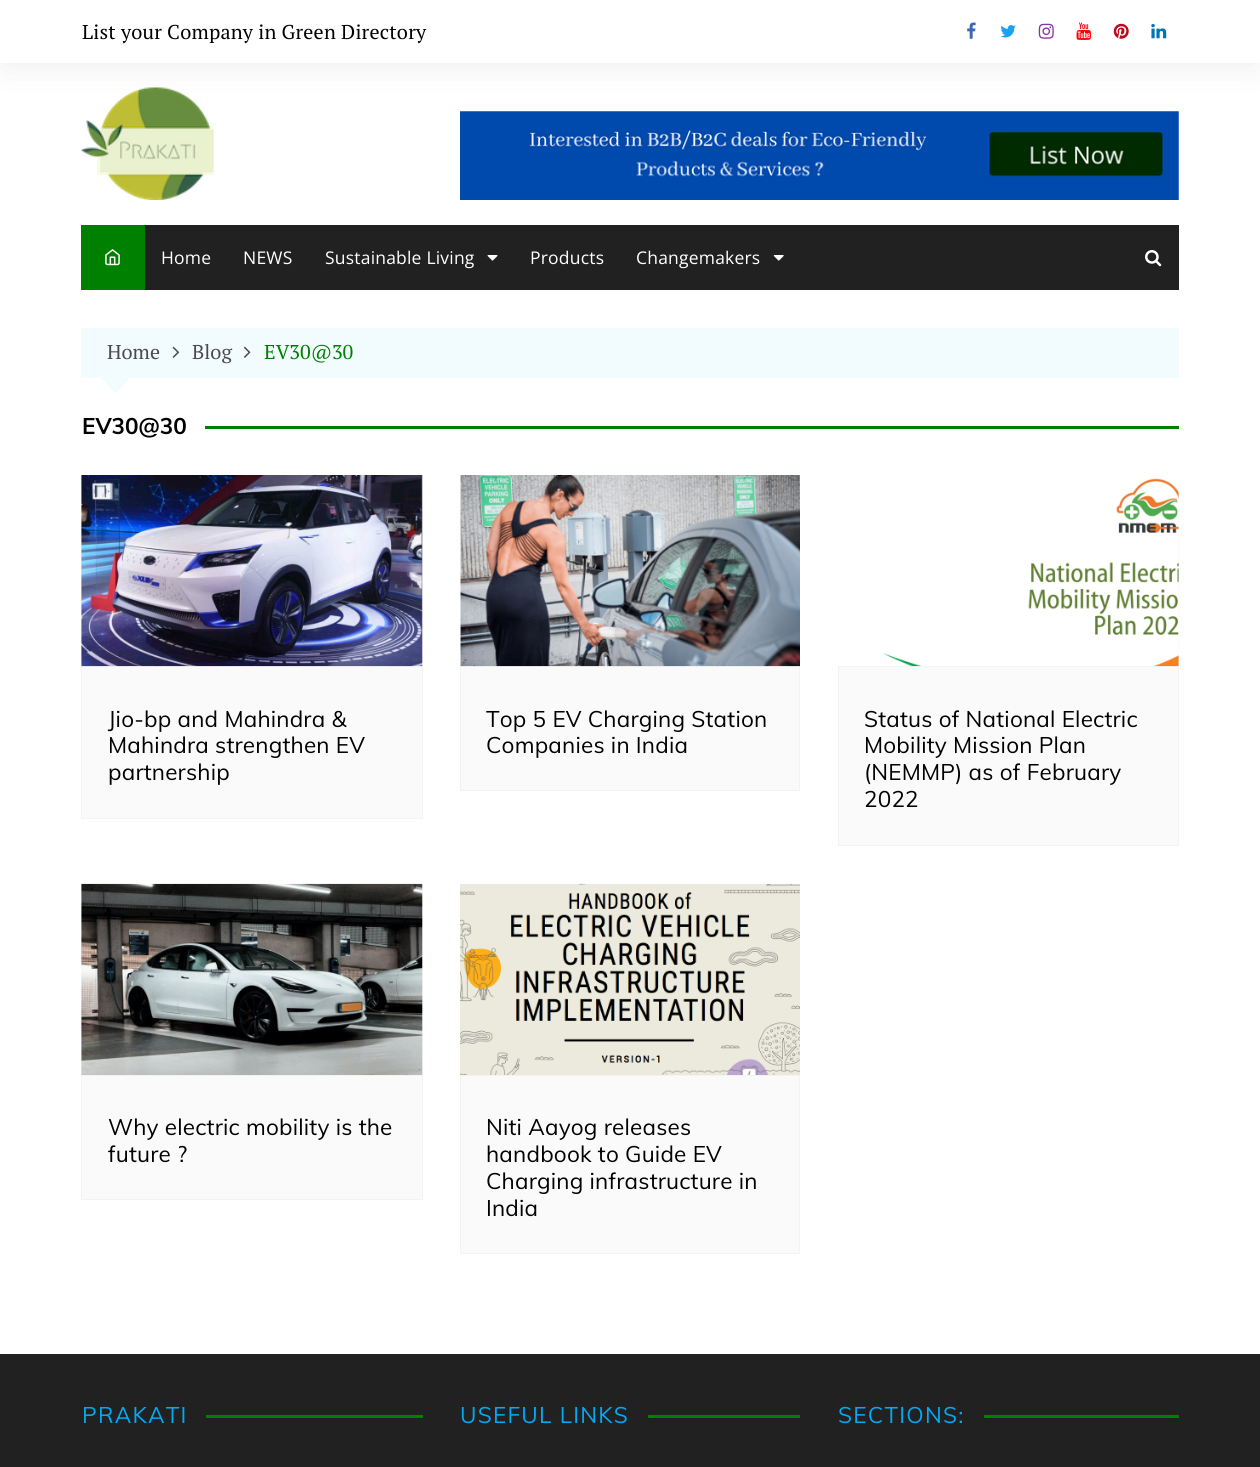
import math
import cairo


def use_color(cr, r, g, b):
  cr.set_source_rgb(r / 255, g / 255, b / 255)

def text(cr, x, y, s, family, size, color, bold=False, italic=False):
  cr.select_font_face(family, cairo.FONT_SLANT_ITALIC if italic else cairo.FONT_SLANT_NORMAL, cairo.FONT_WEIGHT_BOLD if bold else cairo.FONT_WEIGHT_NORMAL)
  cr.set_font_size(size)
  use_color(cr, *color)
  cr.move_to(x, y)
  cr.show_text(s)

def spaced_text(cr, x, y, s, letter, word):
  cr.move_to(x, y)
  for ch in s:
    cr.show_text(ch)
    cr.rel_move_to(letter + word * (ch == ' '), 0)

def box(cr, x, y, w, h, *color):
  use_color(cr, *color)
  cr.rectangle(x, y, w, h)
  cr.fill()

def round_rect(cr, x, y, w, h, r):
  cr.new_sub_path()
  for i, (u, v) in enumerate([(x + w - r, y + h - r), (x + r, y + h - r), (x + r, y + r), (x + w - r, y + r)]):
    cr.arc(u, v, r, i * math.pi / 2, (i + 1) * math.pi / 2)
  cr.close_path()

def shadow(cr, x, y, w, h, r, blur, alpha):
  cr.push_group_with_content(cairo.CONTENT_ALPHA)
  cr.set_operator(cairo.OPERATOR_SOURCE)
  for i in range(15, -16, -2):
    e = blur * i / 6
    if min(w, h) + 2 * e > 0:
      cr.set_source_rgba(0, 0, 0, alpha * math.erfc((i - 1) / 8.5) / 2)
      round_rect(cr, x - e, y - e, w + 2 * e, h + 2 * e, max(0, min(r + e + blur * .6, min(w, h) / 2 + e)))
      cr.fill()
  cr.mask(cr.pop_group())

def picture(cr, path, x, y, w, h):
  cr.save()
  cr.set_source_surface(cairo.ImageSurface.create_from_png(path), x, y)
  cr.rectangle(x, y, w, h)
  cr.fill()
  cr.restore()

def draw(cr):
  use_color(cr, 255, 255, 255)
  cr.paint()
  cr.save()
  cr.set_fill_rule(cairo.FILL_RULE_EVEN_ODD)
  cr.new_path()
  cr.move_to(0, 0)
  cr.line_to(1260, 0)
  cr.line_to(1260, 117)
  cr.line_to(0, 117)
  cr.close_path()
  cr.move_to(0, 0)
  cr.line_to(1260, 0)
  cr.line_to(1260, 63)
  cr.line_to(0, 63)
  cr.close_path()
  cr.clip()
  use_color(cr, 0, 0, 0)
  shadow(cr, 6, 9, 1248, 50, 0, 19, 0.1)
  cr.restore()
  picture(cr, "img_01.png", 967, 22, 9, 17)
  picture(cr, "img_02.png", 1000, 25, 16, 13)
  picture(cr, "img_03.png", 1038, 23, 16, 16)
  picture(cr, "img_04.png", 1076, 22, 15, 18)
  picture(cr, "img_05.png", 1113, 23, 16, 16)
  picture(cr, "img_06.png", 1151, 24, 16, 15)
  picture(cr, "img_07.png", 81, 87, 133, 113)
  picture(cr, "img_08.png", 460, 111, 719, 89)
  box(cr, 145, 225, 1034, 65, 33, 33, 33)
  box(cr, 81, 225, 64, 65, 0, 128, 0)
  picture(cr, "img_09.png", 105, 249, 15, 17)
  picture(cr, "img_10.png", 487, 255, 11, 6)
  picture(cr, "img_11.png", 773, 255, 11, 6)
  picture(cr, "img_12.png", 1145, 250, 17, 17)
  box(cr, 81, 328, 1098, 50, 242, 251, 254)
  picture(cr, "img_13.png", 172, 346, 8, 12)
  picture(cr, "img_14.png", 244, 346, 7, 12)
  cr.new_path()
  cr.move_to(100.5, 377.5)
  cr.line_to(130.5, 377.5)
  cr.line_to(115.5, 393.5)
  cr.close_path()
  cr.fill()
  box(cr, 205, 426, 974, 3, 0, 128, 0)
  box(cr, 81, 475, 342, 191, 245, 245, 245)
  use_color(cr, 250, 250, 250)
  cr.rectangle(81.5, 666.5, 341, 152)
  cr.fill_preserve()
  use_color(cr, 243, 243, 243)
  cr.set_line_width(1)
  cr.stroke()
  picture(cr, "img_15.png", 81, 475, 342, 192)
  use_color(cr, 250, 250, 250)
  cr.rectangle(460.5, 666.5, 339, 124)
  cr.fill_preserve()
  use_color(cr, 243, 243, 243)
  cr.stroke()
  picture(cr, "img_16.png", 460, 475, 340, 192)
  box(cr, 1178, 475, 1, 191, 245, 245, 245)
  use_color(cr, 250, 250, 250)
  cr.rectangle(838.5, 666.5, 340, 179)
  cr.fill_preserve()
  use_color(cr, 243, 243, 243)
  cr.stroke()
  picture(cr, "img_17.png", 838, 475, 341, 192)
  box(cr, 81, 884, 342, 191, 245, 245, 245)
  picture(cr, "img_18.png", 81, 883, 342, 192)
  use_color(cr, 250, 250, 250)
  cr.rectangle(81.5, 1075.5, 341, 124)
  cr.fill_preserve()
  use_color(cr, 243, 243, 243)
  cr.stroke()
  picture(cr, "img_19.png", 460, 883, 340, 192)
  use_color(cr, 250, 250, 250)
  cr.rectangle(460.5, 1075.5, 339, 178)
  cr.fill_preserve()
  use_color(cr, 243, 243, 243)
  cr.stroke()
  box(cr, 0, 1354, 1260, 113, 33, 33, 33)
  box(cr, 206, 1415, 217, 3, 0, 128, 0)
  box(cr, 648, 1415, 152, 3, 0, 128, 0)
  box(cr, 984, 1415, 195, 3, 0, 128, 0)
  cr.select_font_face("PT Serif")
  cr.set_font_size(20)
  use_color(cr, 1, 1, 1)
  spaced_text(cr, 82, 39, "List your Company in Green Directory", 0.2, 0)
  cr.select_font_face("Open Sans")
  cr.set_font_size(17.5)
  use_color(cr, 255, 255, 255)
  spaced_text(cr, 161, 264, "Home", 0.2, 0)
  spaced_text(cr, 243, 264, "NEWS", 0.2, 0)
  spaced_text(cr, 325, 264, "Sustainable Living", 0.2, 0)
  spaced_text(cr, 530, 264, "Products", 0.2, 0)
  spaced_text(cr, 636, 264, "Changemakers", 0.2, 0)
  text(cr, 107, 359, "Home", "PT Serif", 20, (73, 75, 76))
  text(cr, 192, 359, "Blog", "PT Serif", 20, (73, 75, 76))
  text(cr, 264, 359, "EV30@30", "PT Serif", 20, (0, 128, 0))
  text(cr, 82, 434, "EV30@30", "Muli", 22.5, (1, 1, 1), bold=True)
  cr.select_font_face("Muli")
  spaced_text(cr, 108, 727, "Jio-bp and Mahindra &", 0.2, 0)
  spaced_text(cr, 108, 753, "Mahindra strengthen EV", 0.2, 0)
  spaced_text(cr, 108, 780, "partnership", 0.2, 0)
  spaced_text(cr, 486, 727, "Top 5 EV Charging Station", 0.2, 0)
  spaced_text(cr, 486, 753, "Companies in India", 0.2, 0)
  spaced_text(cr, 864, 727, "Status of National Electric", 0.2, 0)
  spaced_text(cr, 864, 753, "Mobility Mission Plan", 0.2, 0)
  spaced_text(cr, 864, 780, "(NEMMP) as of February", 0.2, 0)
  spaced_text(cr, 864, 807, "2022", 0.2, 0)
  spaced_text(cr, 108, 1135, "Why electric mobility is the", 0.2, 0)
  spaced_text(cr, 108, 1162, "future ?", 0.2, 0)
  spaced_text(cr, 486, 1135, "Niti Aayog releases", 0.2, 0)
  spaced_text(cr, 486, 1162, "handbook to Guide EV", 0.2, 0)
  spaced_text(cr, 486, 1189, "Charging infrastructure in", 0.2, 0)
  spaced_text(cr, 486, 1216, "India", 0.2, 0)
  use_color(cr, 3, 169, 244)
  spaced_text(cr, 82, 1423, "PRAKATI", 1.25, 0)
  spaced_text(cr, 460, 1423, "USEFUL LINKS", 1.25, 0)
  spaced_text(cr, 838, 1423, "SECTIONS:", 1.25, 0)


surface = cairo.ImageSurface(cairo.FORMAT_RGB24, 1260, 1467)
cr = cairo.Context(surface)
options = cairo.FontOptions()
options.set_hint_metrics(cairo.HINT_METRICS_OFF)
options.set_hint_style(cairo.HINT_STYLE_NONE)
cr.set_font_options(options)
cr.set_miter_limit(4)
draw(cr)
surface.write_to_png("out.png")
